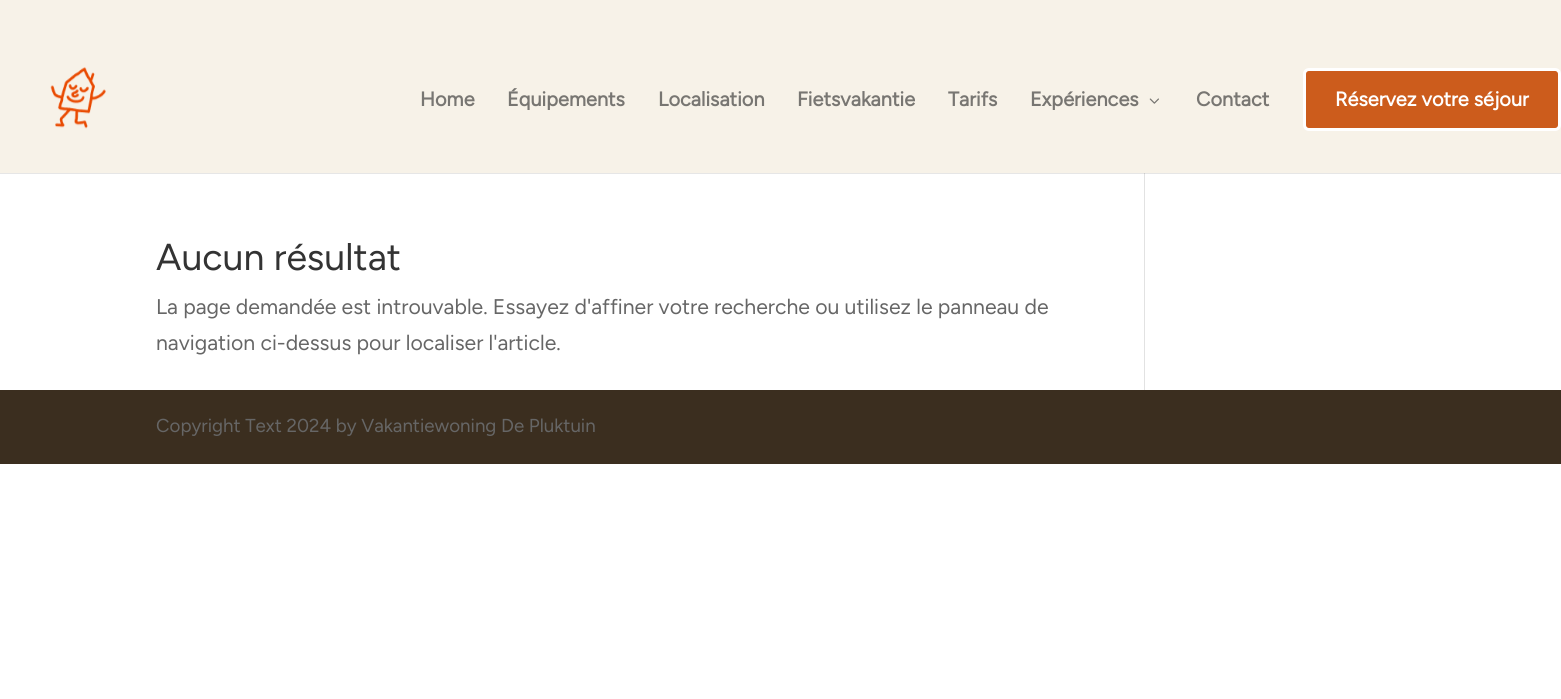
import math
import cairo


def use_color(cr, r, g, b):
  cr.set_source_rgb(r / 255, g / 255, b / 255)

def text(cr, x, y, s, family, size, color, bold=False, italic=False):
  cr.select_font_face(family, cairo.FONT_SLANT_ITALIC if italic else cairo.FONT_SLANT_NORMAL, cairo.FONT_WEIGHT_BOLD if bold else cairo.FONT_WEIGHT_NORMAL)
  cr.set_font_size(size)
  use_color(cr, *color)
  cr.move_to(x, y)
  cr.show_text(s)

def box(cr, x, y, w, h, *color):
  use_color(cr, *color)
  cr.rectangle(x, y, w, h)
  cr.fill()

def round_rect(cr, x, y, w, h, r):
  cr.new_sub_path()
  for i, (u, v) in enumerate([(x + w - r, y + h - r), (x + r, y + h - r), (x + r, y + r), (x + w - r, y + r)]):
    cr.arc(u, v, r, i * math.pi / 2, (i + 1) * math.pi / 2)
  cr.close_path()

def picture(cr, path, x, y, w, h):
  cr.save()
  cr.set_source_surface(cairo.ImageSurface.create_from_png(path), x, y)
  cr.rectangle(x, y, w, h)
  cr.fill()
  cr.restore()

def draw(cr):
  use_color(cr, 255, 255, 255)
  cr.paint()
  box(cr, 0, 173, 1561, 1, 230, 230, 230)
  box(cr, 1144, 166, 1, 224, 226, 226, 226)
  box(cr, 1144, 172, 1, 2, 203, 203, 203)
  box(cr, 0, 0, 1561, 173, 247, 242, 232)
  picture(cr, "img_01.png", 50, 67, 56, 62)
  picture(cr, "img_02.png", 1149, 98, 10, 6)
  use_color(cr, 204, 92, 28)
  round_rect(cr, 1304.5, 69.5, 255, 60, 4.5)
  cr.fill_preserve()
  use_color(cr, 255, 255, 255)
  cr.set_line_width(3)
  cr.stroke()
  box(cr, 0, 390, 1561, 74, 59, 46, 31)
  text(cr, 420, 106, "Home", "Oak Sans", 20, (120, 118, 114), bold=True)
  text(cr, 507, 106, "Équipements", "Oak Sans", 20, (120, 118, 114), bold=True)
  text(cr, 658, 106, "Localisation", "Oak Sans", 20, (120, 118, 114), bold=True)
  text(cr, 797, 106, "Fietsvakantie", "Oak Sans", 20, (120, 118, 114), bold=True)
  text(cr, 948, 106, "Tarifs", "Oak Sans", 20, (120, 118, 114), bold=True)
  text(cr, 1030, 106, "Expériences", "Oak Sans", 20, (120, 118, 114), bold=True)
  text(cr, 1196, 106, "Contact", "Oak Sans", 20, (120, 118, 114), bold=True)
  text(cr, 1335, 106, "Réservez votre séjour", "Oak Sans", 20, (255, 255, 255), bold=True)
  text(cr, 156, 270, "Aucun résultat", "Oak Sans", 37.5, (51, 51, 51))
  text(cr, 156, 314, "La page demandée est introuvable. Essayez d'affiner votre recherche ou utilisez le panneau de", "Oak Sans", 21.25, (102, 102, 102))
  text(cr, 156, 350, "navigation ci-dessus pour localiser l'article.", "Oak Sans", 21.25, (102, 102, 102))
  text(cr, 156, 432, "Copyright Text 2024 by Vakantiewoning De Pluktuin", "Oak Sans", 18.75, (102, 102, 102))


surface = cairo.ImageSurface(cairo.FORMAT_RGB24, 1561, 699)
cr = cairo.Context(surface)
options = cairo.FontOptions()
options.set_hint_metrics(cairo.HINT_METRICS_OFF)
options.set_hint_style(cairo.HINT_STYLE_NONE)
cr.set_font_options(options)
cr.set_miter_limit(4)
draw(cr)
surface.write_to_png("out.png")
